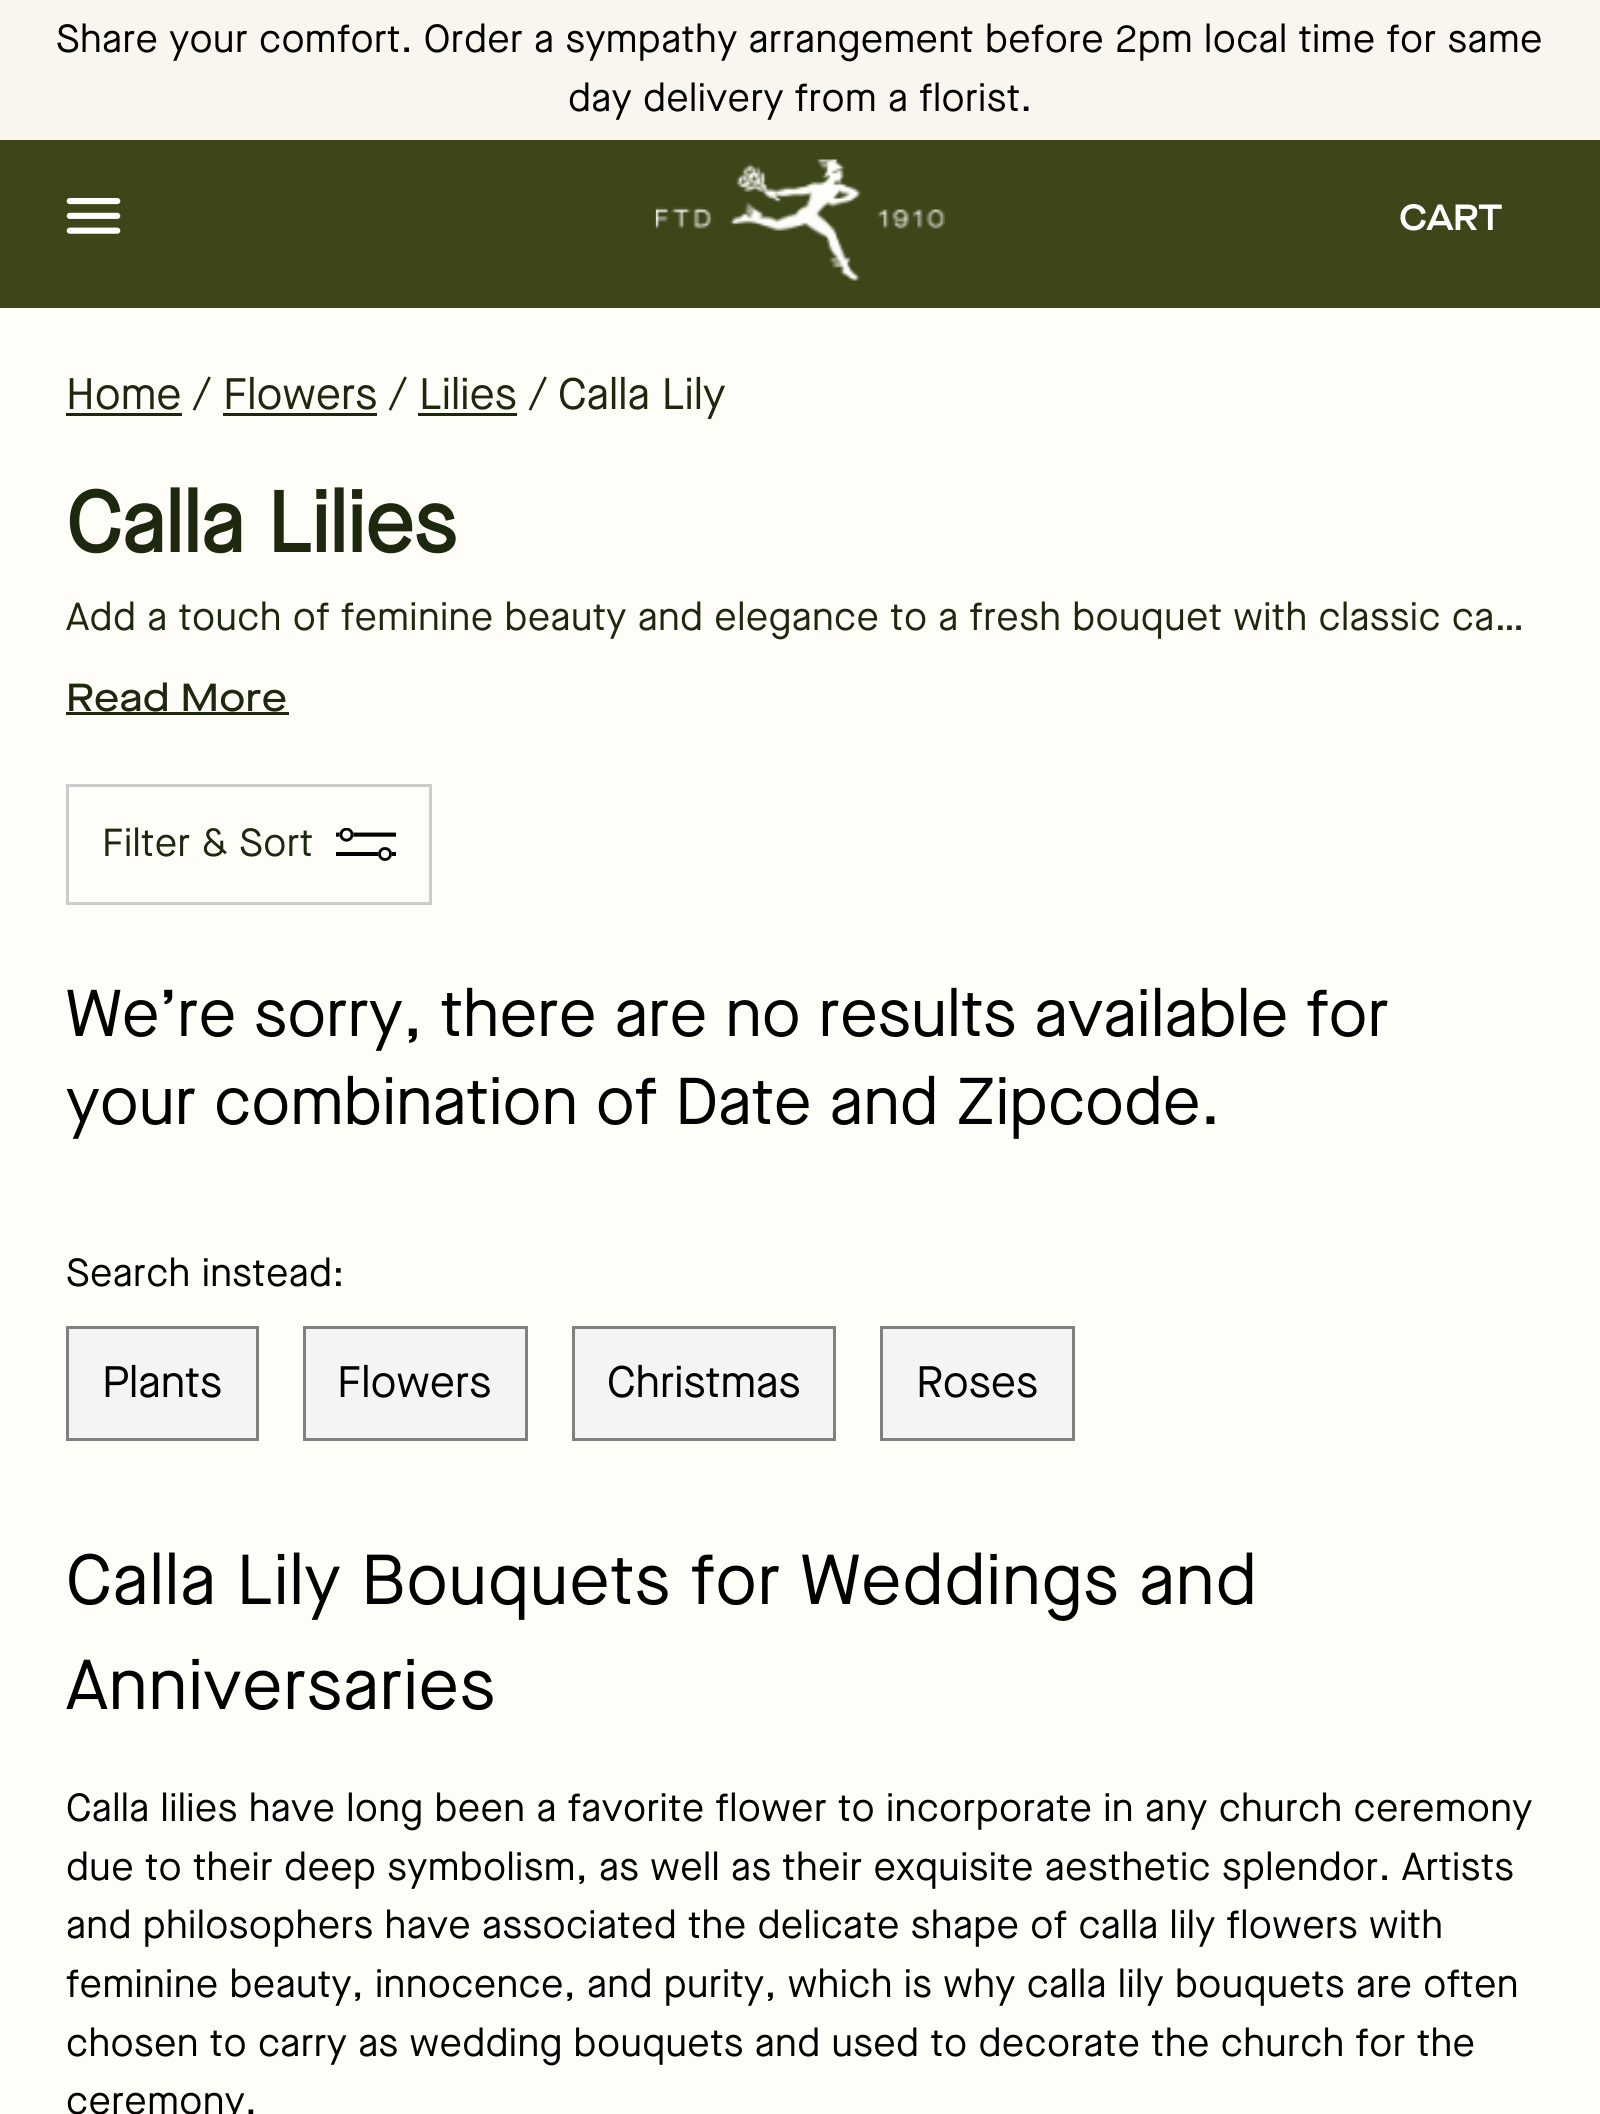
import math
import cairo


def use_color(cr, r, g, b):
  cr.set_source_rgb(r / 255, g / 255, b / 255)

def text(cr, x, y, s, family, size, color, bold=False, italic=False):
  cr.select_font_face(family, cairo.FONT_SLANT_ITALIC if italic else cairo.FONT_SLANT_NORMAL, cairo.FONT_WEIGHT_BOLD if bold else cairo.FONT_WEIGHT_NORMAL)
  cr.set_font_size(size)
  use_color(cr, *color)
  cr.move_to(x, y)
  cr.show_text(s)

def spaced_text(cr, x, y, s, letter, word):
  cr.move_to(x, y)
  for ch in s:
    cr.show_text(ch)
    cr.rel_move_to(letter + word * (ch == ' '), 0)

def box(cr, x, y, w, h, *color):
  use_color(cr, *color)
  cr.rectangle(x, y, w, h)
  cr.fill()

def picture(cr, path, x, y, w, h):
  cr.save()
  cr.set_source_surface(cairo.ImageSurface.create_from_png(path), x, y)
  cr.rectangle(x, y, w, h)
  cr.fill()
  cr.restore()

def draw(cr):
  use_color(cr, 248, 246, 239)
  cr.paint()
  box(cr, 0, 140, 1600, 168, 60, 70, 25)
  picture(cr, "img_01.png", 66, 198, 55, 36)
  picture(cr, "img_02.png", 655, 159, 290, 122)
  box(cr, 0, 308, 1600, 1806, 255, 253, 248)
  box(cr, 66, 413, 116, 3, 30, 40, 15)
  box(cr, 223, 413, 154, 3, 30, 40, 15)
  box(cr, 418, 413, 99, 3, 30, 40, 15)
  box(cr, 66, 712, 223, 3, 30, 40, 15)
  cr.rectangle(67.5, 785.5, 363, 118)
  use_color(cr, 204, 204, 204)
  cr.set_line_width(3)
  cr.stroke()
  picture(cr, "img_03.png", 336, 828, 60, 33)
  use_color(cr, 244, 244, 244)
  cr.rectangle(67.5, 1327.5, 190, 112)
  cr.fill_preserve()
  use_color(cr, 128, 128, 128)
  cr.stroke()
  use_color(cr, 244, 244, 244)
  cr.rectangle(304.5, 1327.5, 222, 112)
  cr.fill_preserve()
  use_color(cr, 128, 128, 128)
  cr.stroke()
  use_color(cr, 244, 244, 244)
  cr.rectangle(573.5, 1327.5, 261, 112)
  cr.fill_preserve()
  use_color(cr, 128, 128, 128)
  cr.stroke()
  use_color(cr, 244, 244, 244)
  cr.rectangle(881.5, 1327.5, 192, 112)
  cr.fill_preserve()
  use_color(cr, 128, 128, 128)
  cr.stroke()
  cr.select_font_face("Maison Neue")
  cr.set_font_size(39.1)
  use_color(cr, 0, 0, 0)
  spaced_text(cr, 56, 52, "Share your comfort. Order a sympathy arrangement before 2pm local time for same", 0.4, 0)
  spaced_text(cr, 568, 111, "day delivery from a florist.", 0.4, 0)
  cr.select_font_face("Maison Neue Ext", cairo.FONT_SLANT_NORMAL, cairo.FONT_WEIGHT_BOLD)
  cr.set_font_size(35)
  use_color(cr, 255, 255, 255)
  spaced_text(cr, 1399, 230, "CART", 0.4, 0)
  text(cr, 66, 409, "Home", "Maison Neue", 44, (30, 40, 15))
  text(cr, 192, 409, "/", "Maison Neue", 44, (30, 40, 15))
  text(cr, 223, 409, "Flowers", "Maison Neue", 44, (30, 40, 15))
  text(cr, 388, 409, "/", "Maison Neue", 44, (30, 40, 15))
  text(cr, 419, 409, "Lilies", "Maison Neue", 44, (30, 40, 15))
  text(cr, 528, 409, "/", "Maison Neue", 44, (30, 40, 15))
  text(cr, 558, 409, "Calla Lily", "Maison Neue", 44, (30, 40, 15))
  text(cr, 66, 552, "Calla Lilies", "Maison Neue", 85.25, (30, 40, 15), bold=True)
  cr.select_font_face("Maison Neue")
  cr.set_font_size(39.1)
  spaced_text(cr, 66, 630, "Add a touch of feminine beauty and elegance to a fresh bouquet with classic ca…", 0.4, 0)
  cr.select_font_face("Maison Neue Ext Medium")
  spaced_text(cr, 66, 711, "Read More", 0.4, 0)
  cr.select_font_face("Maison Neue")
  spaced_text(cr, 102, 856, "Filter & Sort", 0.4, 0)
  text(cr, 66, 1036, "We’re sorry, there are no results available for", "Maison Neue", 66, (0, 0, 0))
  text(cr, 66, 1124, "your combination of Date and Zipcode.", "Maison Neue", 66, (0, 0, 0))
  cr.set_font_size(39.1)
  spaced_text(cr, 66, 1286, "Search instead:", 0.4, 0)
  text(cr, 102, 1397, "Plants", "Maison Neue", 44, (0, 0, 0))
  text(cr, 337, 1397, "Flowers", "Maison Neue", 44, (0, 0, 0))
  text(cr, 607, 1397, "Christmas", "Maison Neue", 44, (0, 0, 0))
  text(cr, 916, 1397, "Roses", "Maison Neue", 44, (0, 0, 0))
  cr.set_font_size(70.5)
  spaced_text(cr, 66, 1604, "Calla Lily Bouquets for Weddings and", 0.7, 0)
  spaced_text(cr, 66, 1709, "Anniversaries", 0.7, 0)
  cr.set_font_size(39.1)
  spaced_text(cr, 66, 1821, "Calla lilies have long been a favorite flower to incorporate in any church ceremony", 0.4, 0)
  spaced_text(cr, 66, 1880, "due to their deep symbolism, as well as their exquisite aesthetic splendor. Artists", 0.4, 0)
  spaced_text(cr, 66, 1938, "and philosophers have associated the delicate shape of calla lily flowers with", 0.4, 0)
  spaced_text(cr, 66, 1997, "feminine beauty, innocence, and purity, which is why calla lily bouquets are often", 0.4, 0)
  spaced_text(cr, 66, 2056, "chosen to carry as wedding bouquets and used to decorate the church for the", 0.4, 0)
  spaced_text(cr, 66, 2114, "ceremony.", 0.4, 0)


surface = cairo.ImageSurface(cairo.FORMAT_RGB24, 1600, 2114)
cr = cairo.Context(surface)
options = cairo.FontOptions()
options.set_hint_metrics(cairo.HINT_METRICS_OFF)
options.set_hint_style(cairo.HINT_STYLE_NONE)
cr.set_font_options(options)
cr.set_miter_limit(4)
draw(cr)
surface.write_to_png("out.png")
